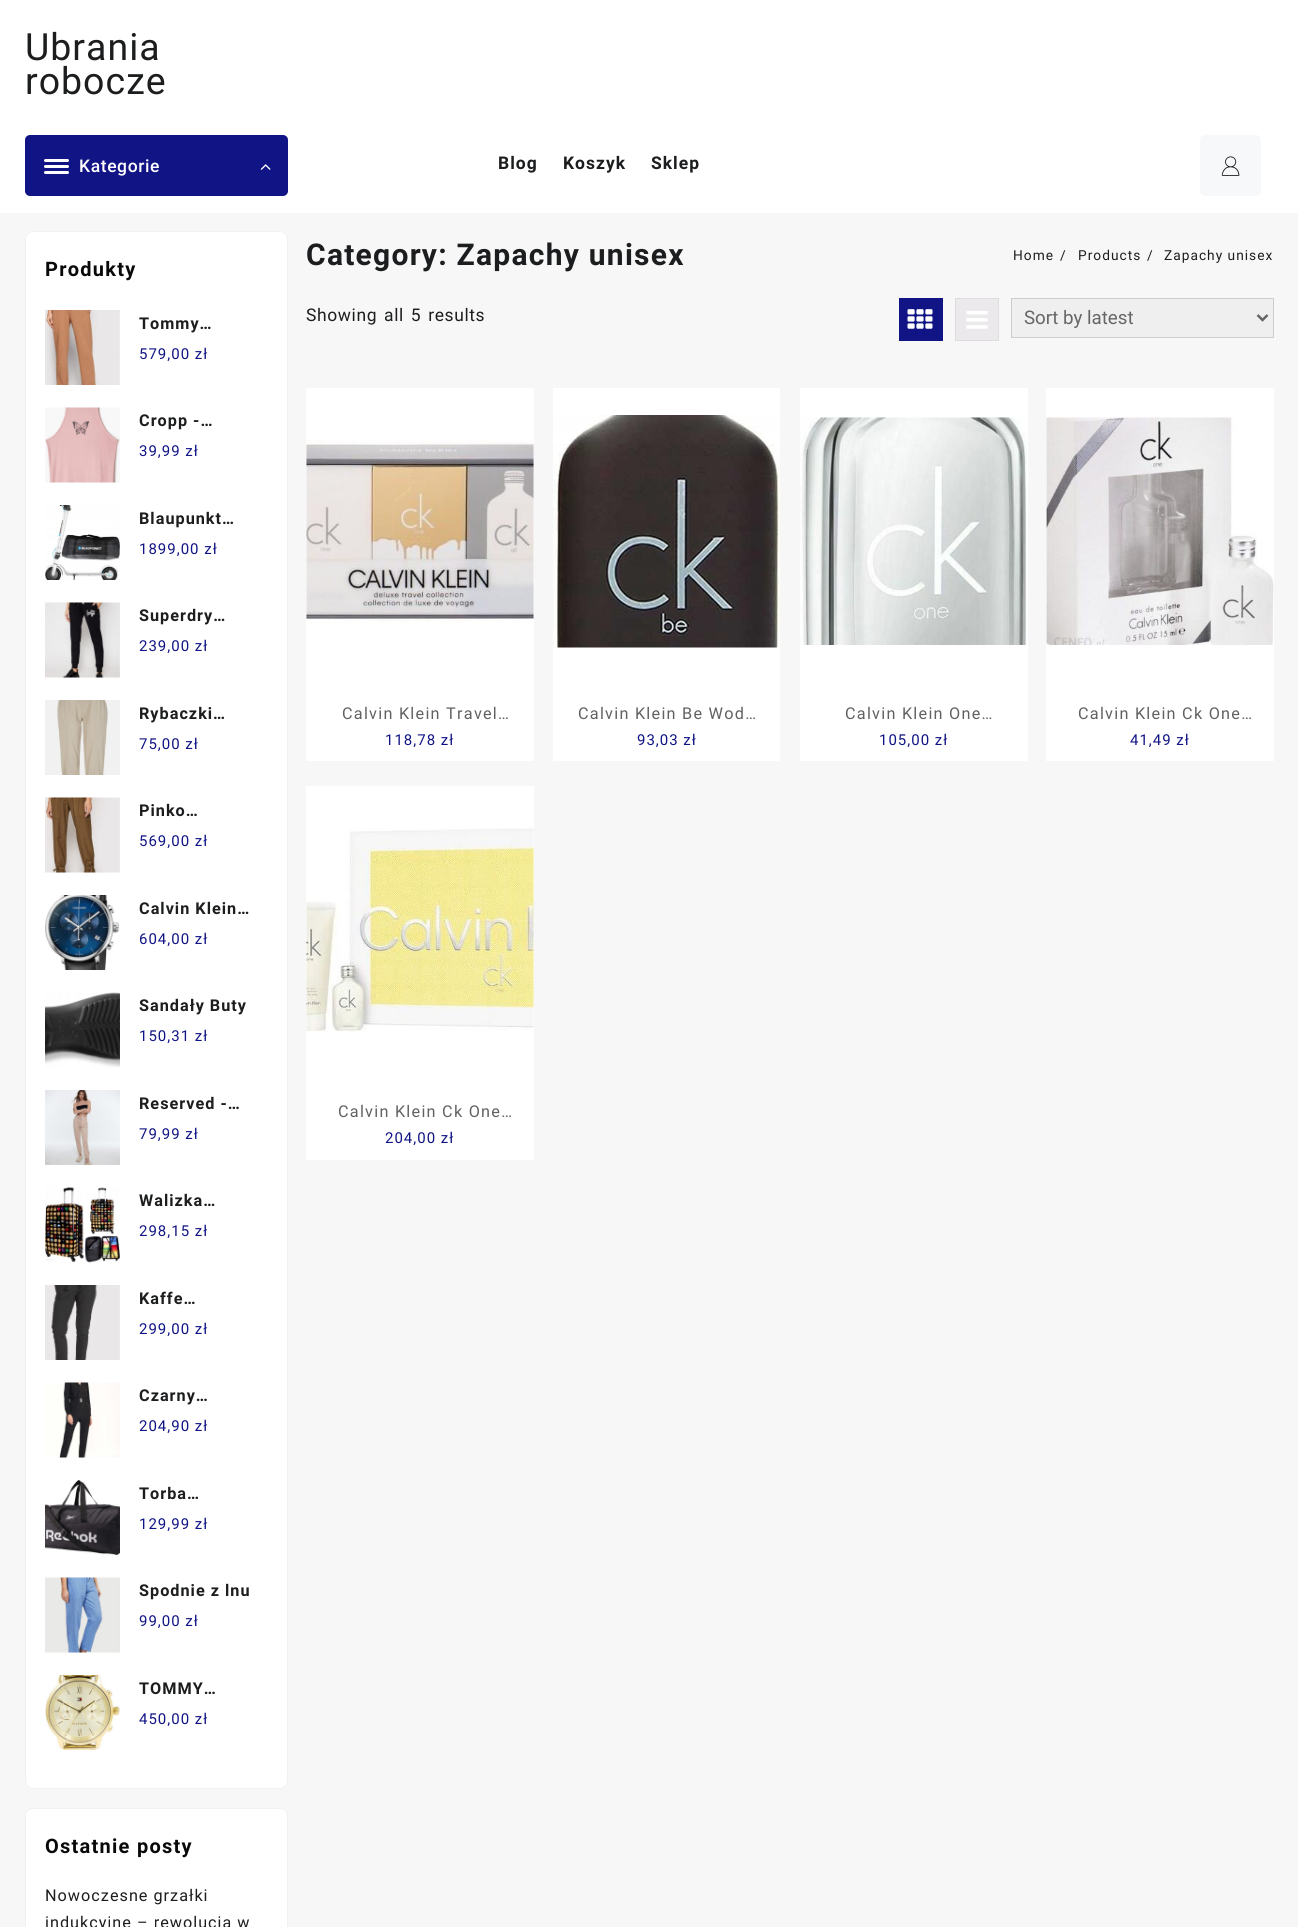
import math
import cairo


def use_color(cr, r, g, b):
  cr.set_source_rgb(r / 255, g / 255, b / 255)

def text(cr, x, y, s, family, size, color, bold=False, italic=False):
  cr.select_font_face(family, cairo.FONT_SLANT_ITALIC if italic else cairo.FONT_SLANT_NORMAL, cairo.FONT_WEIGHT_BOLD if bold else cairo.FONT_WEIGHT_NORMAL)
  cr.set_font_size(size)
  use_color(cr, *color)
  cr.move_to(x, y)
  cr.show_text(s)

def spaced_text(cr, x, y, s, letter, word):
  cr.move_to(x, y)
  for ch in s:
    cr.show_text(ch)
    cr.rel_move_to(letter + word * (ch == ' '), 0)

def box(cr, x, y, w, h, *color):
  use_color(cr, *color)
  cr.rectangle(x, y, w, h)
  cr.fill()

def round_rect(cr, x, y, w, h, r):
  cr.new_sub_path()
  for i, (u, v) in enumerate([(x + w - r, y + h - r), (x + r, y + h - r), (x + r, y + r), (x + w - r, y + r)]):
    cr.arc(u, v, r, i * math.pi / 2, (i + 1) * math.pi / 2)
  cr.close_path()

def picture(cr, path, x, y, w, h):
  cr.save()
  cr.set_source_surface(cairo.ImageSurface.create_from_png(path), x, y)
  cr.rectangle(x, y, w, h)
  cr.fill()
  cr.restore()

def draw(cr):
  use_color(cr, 247, 247, 247)
  cr.paint()
  box(cr, 0, 0, 1298, 213, 255, 255, 255)
  use_color(cr, 17, 20, 133)
  round_rect(cr, 25, 135, 263, 61, 5)
  cr.fill()
  use_color(cr, 255, 255, 255)
  round_rect(cr, 44, 159, 25, 3, 1.5)
  cr.fill()
  round_rect(cr, 44, 165, 25, 3, 1.5)
  cr.fill()
  round_rect(cr, 44, 171, 25, 3, 1.5)
  cr.fill()
  picture(cr, "img_01.png", 260, 164, 11, 6)
  use_color(cr, 247, 248, 249)
  round_rect(cr, 1200, 135, 61, 61, 5)
  cr.fill()
  picture(cr, "img_02.png", 1221, 156, 19, 20)
  use_color(cr, 255, 255, 255)
  round_rect(cr, 25.5, 231.5, 262, 1557, 7.5)
  cr.fill_preserve()
  use_color(cr, 241, 241, 241)
  cr.set_line_width(1)
  cr.stroke()
  picture(cr, "img_03.png", 45, 310, 75, 75)
  picture(cr, "img_04.png", 45, 407, 75, 76)
  picture(cr, "img_05.png", 45, 505, 75, 75)
  picture(cr, "img_06.png", 45, 602, 75, 76)
  picture(cr, "img_07.png", 45, 700, 75, 75)
  picture(cr, "img_08.png", 45, 797, 75, 76)
  picture(cr, "img_09.png", 45, 895, 75, 75)
  picture(cr, "img_10.png", 45, 992, 75, 76)
  picture(cr, "img_11.png", 45, 1090, 75, 75)
  picture(cr, "img_12.png", 45, 1187, 75, 76)
  picture(cr, "img_13.png", 45, 1285, 75, 75)
  picture(cr, "img_14.png", 45, 1382, 75, 76)
  picture(cr, "img_15.png", 45, 1480, 75, 75)
  picture(cr, "img_16.png", 45, 1577, 75, 76)
  picture(cr, "img_17.png", 45, 1675, 75, 75)
  use_color(cr, 255, 255, 255)
  round_rect(cr, 25.5, 1808.5, 262, 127, 7.5)
  cr.fill_preserve()
  use_color(cr, 241, 241, 241)
  cr.stroke()
  box(cr, 899, 298, 44, 43, 17, 20, 133)
  picture(cr, "img_18.png", 907, 309, 26, 20)
  use_color(cr, 235, 233, 235)
  cr.rectangle(955.5, 298.5, 43, 42)
  cr.fill_preserve()
  use_color(cr, 221, 221, 221)
  cr.stroke()
  picture(cr, "img_19.png", 966, 311, 22, 18)
  use_color(cr, 239, 239, 239)
  cr.rectangle(1011.5, 298.5, 262, 39)
  cr.fill_preserve()
  use_color(cr, 204, 204, 204)
  cr.stroke()
  cr.new_path()
  cr.move_to(1257.5, 315)
  cr.line_to(1262.5, 320)
  cr.line_to(1267.5, 315)
  use_color(cr, 102, 102, 102)
  cr.set_line_width(2.5)
  cr.stroke()
  box(cr, 306, 388, 228, 373, 255, 255, 255)
  picture(cr, "img_20.png", 306, 440, 228, 183)
  box(cr, 553, 388, 227, 373, 255, 255, 255)
  picture(cr, "img_21.png", 553, 415, 227, 233)
  box(cr, 800, 388, 228, 373, 255, 255, 255)
  picture(cr, "img_22.png", 800, 417, 227, 228)
  box(cr, 1046, 388, 228, 373, 255, 255, 255)
  picture(cr, "img_23.png", 1046, 417, 228, 228)
  box(cr, 306, 786, 228, 374, 255, 255, 255)
  picture(cr, "img_24.png", 306, 828, 228, 205)
  cr.select_font_face("Roboto")
  cr.set_font_size(37.5)
  use_color(cr, 28, 29, 30)
  spaced_text(cr, 25, 60, "Ubrania", 1, 0)
  spaced_text(cr, 25, 94, "robocze", 1, 0)
  cr.select_font_face("Roboto Medium")
  cr.set_font_size(17.5)
  use_color(cr, 255, 255, 255)
  spaced_text(cr, 79, 172, "Kategorie", 0.6, 0)
  cr.select_font_face("Roboto", cairo.FONT_SLANT_NORMAL, cairo.FONT_WEIGHT_BOLD)
  use_color(cr, 28, 29, 30)
  spaced_text(cr, 498, 169, "Blog", 1, 0)
  spaced_text(cr, 563, 169, "Koszyk", 1, 0)
  spaced_text(cr, 651, 169, "Sklep", 1, 0)
  cr.set_font_size(20)
  use_color(cr, 9, 9, 9)
  spaced_text(cr, 45, 276, "Produkty", 1.25, 0)
  cr.set_font_size(16.25)
  use_color(cr, 28, 29, 30)
  spaced_text(cr, 139, 329, "Tommy…", 1, 0)
  cr.select_font_face("Roboto")
  cr.set_font_size(15)
  use_color(cr, 17, 20, 133)
  spaced_text(cr, 139, 359, "579,00 zł", 1, 0)
  cr.select_font_face("Roboto", cairo.FONT_SLANT_NORMAL, cairo.FONT_WEIGHT_BOLD)
  cr.set_font_size(16.25)
  use_color(cr, 28, 29, 30)
  spaced_text(cr, 139, 426, "Cropp -…", 1, 0)
  cr.select_font_face("Roboto")
  cr.set_font_size(15)
  use_color(cr, 17, 20, 133)
  spaced_text(cr, 139, 456, "39,99 zł", 1, 0)
  cr.select_font_face("Roboto", cairo.FONT_SLANT_NORMAL, cairo.FONT_WEIGHT_BOLD)
  cr.set_font_size(16.25)
  use_color(cr, 28, 29, 30)
  spaced_text(cr, 139, 524, "Blaupunkt…", 1, 0)
  cr.select_font_face("Roboto")
  cr.set_font_size(15)
  use_color(cr, 17, 20, 133)
  spaced_text(cr, 139, 554, "1899,00 zł", 1, 0)
  cr.select_font_face("Roboto", cairo.FONT_SLANT_NORMAL, cairo.FONT_WEIGHT_BOLD)
  cr.set_font_size(16.25)
  use_color(cr, 28, 29, 30)
  spaced_text(cr, 139, 621, "Superdry…", 1, 0)
  cr.select_font_face("Roboto")
  cr.set_font_size(15)
  use_color(cr, 17, 20, 133)
  spaced_text(cr, 139, 651, "239,00 zł", 1, 0)
  cr.select_font_face("Roboto", cairo.FONT_SLANT_NORMAL, cairo.FONT_WEIGHT_BOLD)
  cr.set_font_size(16.25)
  use_color(cr, 28, 29, 30)
  spaced_text(cr, 139, 719, "Rybaczki…", 1, 0)
  cr.select_font_face("Roboto")
  cr.set_font_size(15)
  use_color(cr, 17, 20, 133)
  spaced_text(cr, 139, 749, "75,00 zł", 1, 0)
  cr.select_font_face("Roboto", cairo.FONT_SLANT_NORMAL, cairo.FONT_WEIGHT_BOLD)
  cr.set_font_size(16.25)
  use_color(cr, 28, 29, 30)
  spaced_text(cr, 139, 816, "Pinko…", 1, 0)
  cr.select_font_face("Roboto")
  cr.set_font_size(15)
  use_color(cr, 17, 20, 133)
  spaced_text(cr, 139, 846, "569,00 zł", 1, 0)
  cr.select_font_face("Roboto", cairo.FONT_SLANT_NORMAL, cairo.FONT_WEIGHT_BOLD)
  cr.set_font_size(16.25)
  use_color(cr, 28, 29, 30)
  spaced_text(cr, 139, 914, "Calvin Klein…", 1, 0)
  cr.select_font_face("Roboto")
  cr.set_font_size(15)
  use_color(cr, 17, 20, 133)
  spaced_text(cr, 139, 944, "604,00 zł", 1, 0)
  cr.select_font_face("Roboto", cairo.FONT_SLANT_NORMAL, cairo.FONT_WEIGHT_BOLD)
  cr.set_font_size(16.25)
  use_color(cr, 28, 29, 30)
  spaced_text(cr, 139, 1011, "Sandały Buty", 1, 0)
  cr.select_font_face("Roboto")
  cr.set_font_size(15)
  use_color(cr, 17, 20, 133)
  spaced_text(cr, 139, 1041, "150,31 zł", 1, 0)
  cr.select_font_face("Roboto", cairo.FONT_SLANT_NORMAL, cairo.FONT_WEIGHT_BOLD)
  cr.set_font_size(16.25)
  use_color(cr, 28, 29, 30)
  spaced_text(cr, 139, 1109, "Reserved -…", 1, 0)
  cr.select_font_face("Roboto")
  cr.set_font_size(15)
  use_color(cr, 17, 20, 133)
  spaced_text(cr, 139, 1139, "79,99 zł", 1, 0)
  cr.select_font_face("Roboto", cairo.FONT_SLANT_NORMAL, cairo.FONT_WEIGHT_BOLD)
  cr.set_font_size(16.25)
  use_color(cr, 28, 29, 30)
  spaced_text(cr, 139, 1206, "Walizka…", 1, 0)
  cr.select_font_face("Roboto")
  cr.set_font_size(15)
  use_color(cr, 17, 20, 133)
  spaced_text(cr, 139, 1236, "298,15 zł", 1, 0)
  cr.select_font_face("Roboto", cairo.FONT_SLANT_NORMAL, cairo.FONT_WEIGHT_BOLD)
  cr.set_font_size(16.25)
  use_color(cr, 28, 29, 30)
  spaced_text(cr, 139, 1304, "Kaffe…", 1, 0)
  cr.select_font_face("Roboto")
  cr.set_font_size(15)
  use_color(cr, 17, 20, 133)
  spaced_text(cr, 139, 1334, "299,00 zł", 1, 0)
  cr.select_font_face("Roboto", cairo.FONT_SLANT_NORMAL, cairo.FONT_WEIGHT_BOLD)
  cr.set_font_size(16.25)
  use_color(cr, 28, 29, 30)
  spaced_text(cr, 139, 1401, "Czarny…", 1, 0)
  cr.select_font_face("Roboto")
  cr.set_font_size(15)
  use_color(cr, 17, 20, 133)
  spaced_text(cr, 139, 1431, "204,90 zł", 1, 0)
  cr.select_font_face("Roboto", cairo.FONT_SLANT_NORMAL, cairo.FONT_WEIGHT_BOLD)
  cr.set_font_size(16.25)
  use_color(cr, 28, 29, 30)
  spaced_text(cr, 139, 1499, "Torba…", 1, 0)
  cr.select_font_face("Roboto")
  cr.set_font_size(15)
  use_color(cr, 17, 20, 133)
  spaced_text(cr, 139, 1529, "129,99 zł", 1, 0)
  cr.select_font_face("Roboto", cairo.FONT_SLANT_NORMAL, cairo.FONT_WEIGHT_BOLD)
  cr.set_font_size(16.25)
  use_color(cr, 28, 29, 30)
  spaced_text(cr, 139, 1596, "Spodnie z lnu", 1, 0)
  cr.select_font_face("Roboto")
  cr.set_font_size(15)
  use_color(cr, 17, 20, 133)
  spaced_text(cr, 139, 1626, "99,00 zł", 1, 0)
  cr.select_font_face("Roboto", cairo.FONT_SLANT_NORMAL, cairo.FONT_WEIGHT_BOLD)
  cr.set_font_size(16.25)
  use_color(cr, 28, 29, 30)
  spaced_text(cr, 139, 1694, "TOMMY…", 1, 0)
  cr.select_font_face("Roboto")
  cr.set_font_size(15)
  use_color(cr, 17, 20, 133)
  spaced_text(cr, 139, 1724, "450,00 zł", 1, 0)
  cr.select_font_face("Roboto", cairo.FONT_SLANT_NORMAL, cairo.FONT_WEIGHT_BOLD)
  cr.set_font_size(20)
  use_color(cr, 9, 9, 9)
  spaced_text(cr, 45, 1853, "Ostatnie posty", 1.25, 0)
  cr.select_font_face("Roboto")
  cr.set_font_size(16.25)
  use_color(cr, 28, 29, 30)
  spaced_text(cr, 45, 1901, "Nowoczesne grzałki", 1, 0)
  spaced_text(cr, 45, 1928, "indukcyjne – rewolucja w", 1, 0)
  cr.select_font_face("Roboto", cairo.FONT_SLANT_NORMAL, cairo.FONT_WEIGHT_BOLD)
  cr.set_font_size(30)
  spaced_text(cr, 306, 265, "Category: Zapachy unisex", 1.25, 0)
  cr.select_font_face("Roboto")
  cr.set_font_size(13.75)
  spaced_text(cr, 1013, 260, "Home", 1, 0)
  spaced_text(cr, 1060, 260, "/", 1, 0)
  spaced_text(cr, 1078, 260, "Products", 1, 0)
  spaced_text(cr, 1147, 260, "/", 1, 0)
  spaced_text(cr, 1164, 260, "Zapachy unisex", 1, 0)
  cr.set_font_size(17.5)
  spaced_text(cr, 306, 321, "Showing all 5 results", 0.6, 2)
  text(cr, 1024, 324, "Sort by latest", "Roboto", 18.75, (102, 102, 102))
  cr.set_font_size(16.25)
  use_color(cr, 98, 96, 96)
  spaced_text(cr, 342, 719, "Calvin Klein Travel…", 1.25, 0)
  cr.set_font_size(15)
  use_color(cr, 17, 20, 133)
  spaced_text(cr, 385, 745, "118,78 zł", 1, 0)
  cr.set_font_size(16.25)
  use_color(cr, 98, 96, 96)
  spaced_text(cr, 578, 719, "Calvin Klein Be Wod…", 1.25, 0)
  cr.set_font_size(15)
  use_color(cr, 17, 20, 133)
  spaced_text(cr, 637, 745, "93,03 zł", 1, 0)
  cr.set_font_size(16.25)
  use_color(cr, 98, 96, 96)
  spaced_text(cr, 845, 719, "Calvin Klein One…", 1.25, 0)
  cr.set_font_size(15)
  use_color(cr, 17, 20, 133)
  spaced_text(cr, 879, 745, "105,00 zł", 1, 0)
  cr.set_font_size(16.25)
  use_color(cr, 98, 96, 96)
  spaced_text(cr, 1078, 719, "Calvin Klein Ck One…", 1.25, 0)
  cr.set_font_size(15)
  use_color(cr, 17, 20, 133)
  spaced_text(cr, 1130, 745, "41,49 zł", 1, 0)
  cr.set_font_size(16.25)
  use_color(cr, 98, 96, 96)
  spaced_text(cr, 338, 1117, "Calvin Klein Ck One…", 1.25, 0)
  cr.set_font_size(15)
  use_color(cr, 17, 20, 133)
  spaced_text(cr, 385, 1143, "204,00 zł", 1, 0)


surface = cairo.ImageSurface(cairo.FORMAT_RGB24, 1298, 1927)
cr = cairo.Context(surface)
options = cairo.FontOptions()
options.set_hint_metrics(cairo.HINT_METRICS_OFF)
options.set_hint_style(cairo.HINT_STYLE_NONE)
cr.set_font_options(options)
cr.set_miter_limit(4)
draw(cr)
surface.write_to_png("out.png")
